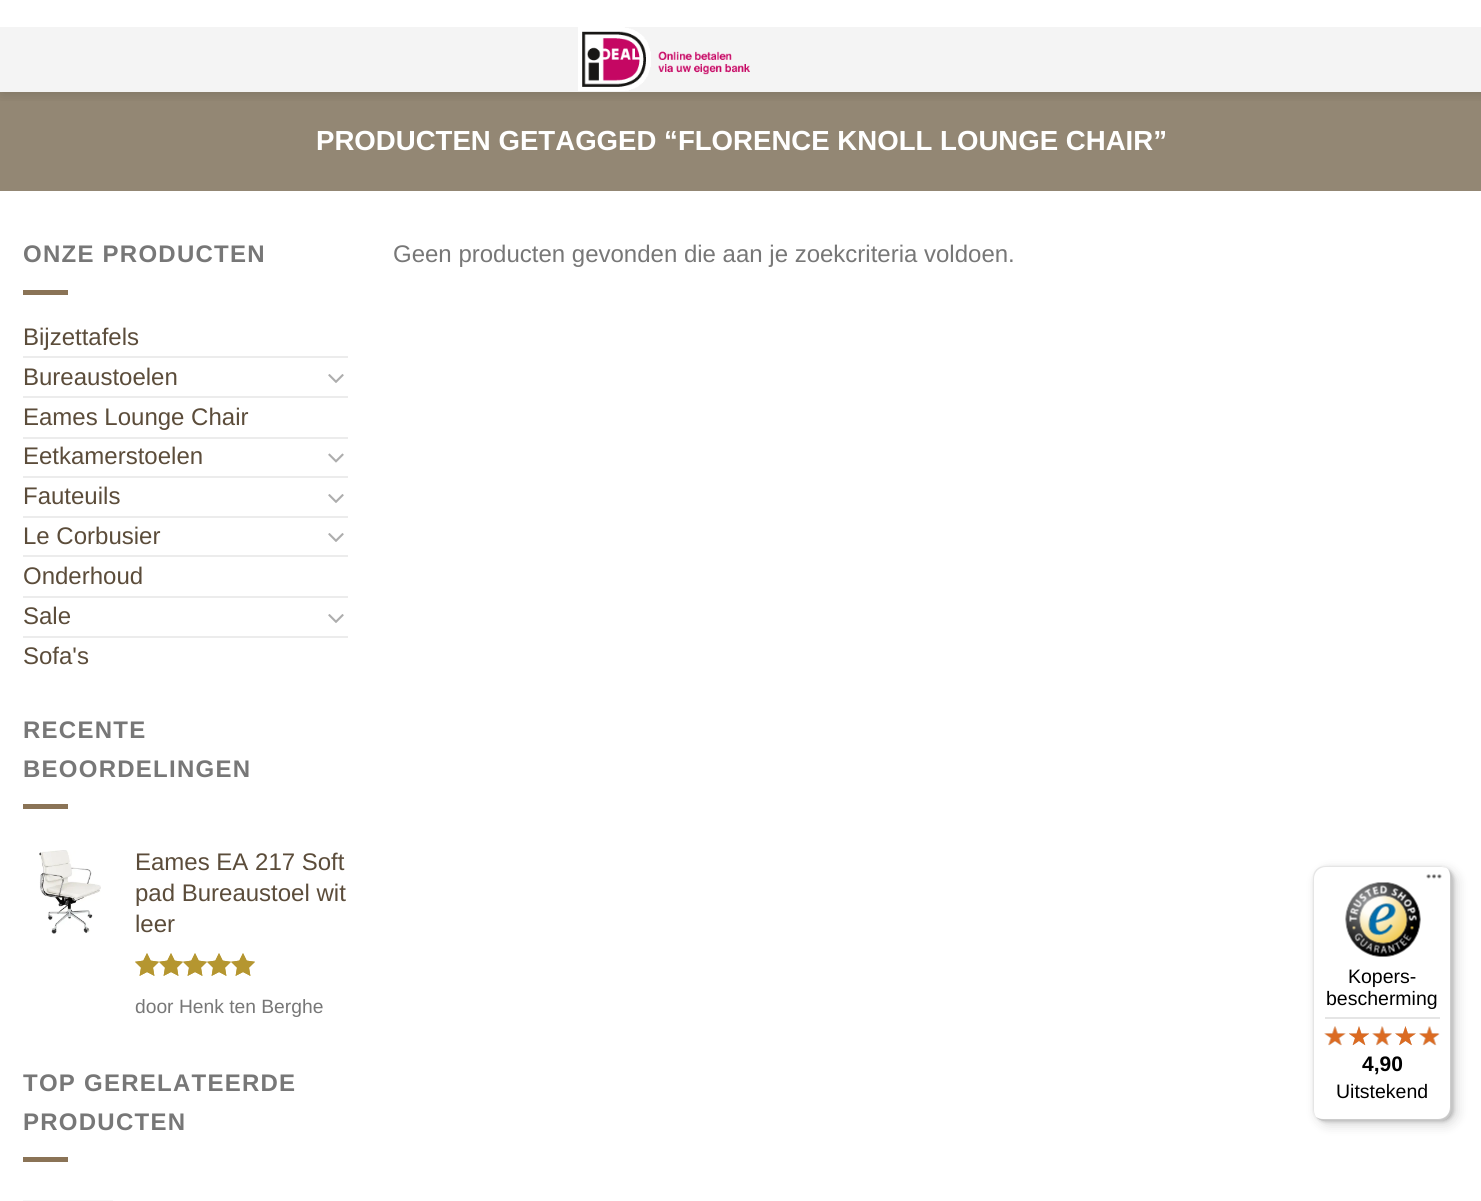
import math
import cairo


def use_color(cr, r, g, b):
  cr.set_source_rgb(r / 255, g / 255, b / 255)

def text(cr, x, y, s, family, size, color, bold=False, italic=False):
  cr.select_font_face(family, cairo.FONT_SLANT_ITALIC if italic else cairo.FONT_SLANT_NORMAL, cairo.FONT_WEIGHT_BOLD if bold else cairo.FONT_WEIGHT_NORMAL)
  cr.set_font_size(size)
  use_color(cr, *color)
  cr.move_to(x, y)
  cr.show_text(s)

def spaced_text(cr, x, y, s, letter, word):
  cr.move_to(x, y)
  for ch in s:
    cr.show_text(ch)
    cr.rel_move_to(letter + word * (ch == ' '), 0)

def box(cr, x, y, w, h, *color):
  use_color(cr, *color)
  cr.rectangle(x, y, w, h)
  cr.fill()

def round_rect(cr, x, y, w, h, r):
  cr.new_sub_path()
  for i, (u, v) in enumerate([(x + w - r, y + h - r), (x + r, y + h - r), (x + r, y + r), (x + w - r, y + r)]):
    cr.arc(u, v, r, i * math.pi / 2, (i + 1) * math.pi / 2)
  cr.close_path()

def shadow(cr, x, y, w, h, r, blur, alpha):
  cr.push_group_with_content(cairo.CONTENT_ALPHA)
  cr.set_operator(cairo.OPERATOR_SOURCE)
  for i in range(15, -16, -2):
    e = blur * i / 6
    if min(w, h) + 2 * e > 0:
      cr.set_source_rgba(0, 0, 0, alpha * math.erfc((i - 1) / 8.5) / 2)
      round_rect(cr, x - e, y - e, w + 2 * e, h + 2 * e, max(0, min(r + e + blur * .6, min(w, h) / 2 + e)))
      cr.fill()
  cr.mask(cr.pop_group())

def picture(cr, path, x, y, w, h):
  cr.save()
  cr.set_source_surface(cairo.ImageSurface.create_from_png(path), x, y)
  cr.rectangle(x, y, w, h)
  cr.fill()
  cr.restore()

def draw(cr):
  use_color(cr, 255, 255, 255)
  cr.paint()
  box(cr, 0, 92, 1481, 99, 147, 135, 116)
  cr.save()
  cr.rectangle(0, 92, 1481, 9)
  cr.clip()
  use_color(cr, 0, 0, 0)
  shadow(cr, 2, -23, 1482, 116, 0, 7.5, 0.15)
  cr.restore()
  box(cr, 0, 27, 1481, 65, 244, 244, 244)
  picture(cr, "img_01.png", 578, 27, 172, 64)
  box(cr, 23, 290, 45, 5, 138, 115, 86)
  box(cr, 23, 356, 325, 2, 236, 236, 236)
  picture(cr, "img_02.png", 328, 374, 16, 9)
  box(cr, 23, 396, 325, 2, 236, 236, 236)
  box(cr, 23, 437, 325, 2, 236, 236, 236)
  picture(cr, "img_03.png", 328, 453, 16, 10)
  box(cr, 23, 476, 325, 2, 236, 236, 236)
  picture(cr, "img_02.png", 328, 494, 16, 9)
  box(cr, 23, 516, 325, 2, 236, 236, 236)
  picture(cr, "img_02.png", 328, 533, 16, 9)
  box(cr, 23, 555, 325, 2, 236, 236, 236)
  box(cr, 23, 596, 325, 2, 236, 236, 236)
  picture(cr, "img_02.png", 328, 614, 16, 9)
  box(cr, 23, 636, 325, 2, 236, 236, 236)
  box(cr, 23, 804, 45, 5, 138, 115, 86)
  picture(cr, "img_04.png", 39, 850, 62, 84)
  picture(cr, "img_05.png", 135, 953, 120, 23)
  picture(cr, "img_06.png", 135, 953, 120, 23)
  box(cr, 23, 1157, 45, 5, 138, 115, 86)
  box(cr, 23, 1200, 90, 1, 247, 247, 247)
  use_color(cr, 0, 0, 0)
  shadow(cr, 1317, 870, 140, 255, 12, 6, 0.15)
  shadow(cr, 1314, 867, 140, 255, 12, 1.5, 0.15)
  use_color(cr, 255, 255, 255)
  round_rect(cr, 1313, 866, 139, 255, 12)
  cr.fill()
  use_color(cr, 229, 229, 229)
  cr.new_path()
  cr.move_to(1326, 867)
  cr.line_to(1442, 867)
  cr.line_to(1447, 868)
  cr.curve_to(1445, 867, 1442, 866, 1440, 866)
  cr.line_to(1325, 866)
  cr.curve_to(1318, 866, 1313, 871, 1313, 878)
  cr.line_to(1313, 1109)
  cr.curve_to(1313, 1112, 1314, 1115, 1316, 1117)
  cr.curve_to(1315, 1115, 1314, 1113, 1314, 1110)
  cr.line_to(1314, 879)
  cr.curve_to(1314, 872, 1319, 867, 1326, 867)
  cr.close_path()
  cr.fill()
  cr.set_source_rgba(0, 0, 0, 0.2)
  cr.new_path()
  cr.move_to(1316, 1117)
  cr.curve_to(1318, 1119, 1321, 1121, 1325, 1121)
  cr.line_to(1440, 1121)
  cr.curve_to(1447, 1121, 1452, 1116, 1452, 1109)
  cr.line_to(1452, 878)
  cr.curve_to(1452, 874, 1450, 871, 1448, 869)
  cr.curve_to(1449, 871, 1450, 873, 1450, 876)
  cr.line_to(1450, 1107)
  cr.curve_to(1450, 1114, 1445, 1119, 1438, 1119)
  cr.line_to(1323, 1119)
  cr.curve_to(1320, 1119, 1318, 1118, 1316, 1117)
  cr.close_path()
  cr.fill()
  cr.set_source_rgba(0.196, 0.196, 0.196, 0.2)
  cr.new_path()
  cr.move_to(1316, 1117)
  cr.curve_to(1318, 1119, 1321, 1121, 1325, 1121)
  cr.line_to(1440, 1121)
  cr.curve_to(1447, 1121, 1452, 1116, 1452, 1109)
  cr.line_to(1452, 878)
  cr.curve_to(1452, 875, 1451, 872, 1449, 870)
  cr.curve_to(1450, 872, 1451, 874, 1451, 877)
  cr.line_to(1451, 1108)
  cr.curve_to(1451, 1114, 1446, 1120, 1439, 1120)
  cr.line_to(1324, 1120)
  cr.curve_to(1321, 1120, 1318, 1119, 1316, 1117)
  cr.close_path()
  cr.fill()
  cr.set_source_rgba(1, 1, 1, 0.3)
  cr.new_path()
  cr.move_to(1316, 1117)
  cr.curve_to(1318, 1119, 1321, 1121, 1325, 1121)
  cr.line_to(1440, 1121)
  cr.curve_to(1447, 1121, 1452, 1116, 1452, 1109)
  cr.line_to(1452, 878)
  cr.curve_to(1452, 875, 1451, 872, 1449, 870)
  cr.curve_to(1450, 872, 1451, 874, 1451, 877)
  cr.line_to(1451, 1108)
  cr.curve_to(1451, 1114, 1446, 1120, 1439, 1120)
  cr.line_to(1324, 1120)
  cr.curve_to(1321, 1120, 1318, 1119, 1316, 1117)
  cr.close_path()
  cr.fill()
  picture(cr, "img_07.png", 1426, 874, 16, 5)
  picture(cr, "img_08.png", 1345, 882, 76, 75)
  box(cr, 1325, 1017, 115, 2, 229, 229, 229)
  picture(cr, "img_09.png", 1324, 1026, 22, 20)
  picture(cr, "img_10.png", 1349, 1026, 20, 19)
  picture(cr, "img_11.png", 1372, 1026, 20, 20)
  picture(cr, "img_12.png", 1395, 1026, 21, 19)
  picture(cr, "img_13.png", 1419, 1026, 21, 20)
  picture(cr, "img_14.png", 1324, 1026, 22, 19)
  picture(cr, "img_15.png", 1349, 1026, 20, 20)
  picture(cr, "img_16.png", 1372, 1026, 20, 19)
  picture(cr, "img_17.png", 1395, 1026, 21, 20)
  picture(cr, "img_18.png", 1419, 1026, 20, 19)
  text(cr, 316, 150, "PRODUCTEN GETAGGED “FLORENCE KNOLL LOUNGE CHAIR”", "Liberation Sans", 27.6, (255, 255, 255), bold=True)
  cr.set_font_size(24)
  use_color(cr, 119, 119, 119)
  spaced_text(cr, 23, 262, "ONZE PRODUCTEN", 1.25, 0)
  text(cr, 23, 345, "Bijzettafels", "Liberation Sans", 24, (91, 76, 58))
  text(cr, 23, 385, "Bureaustoelen", "Liberation Sans", 24, (91, 76, 58))
  text(cr, 23, 425, "Eames Lounge Chair", "Liberation Sans", 24, (91, 76, 58))
  text(cr, 23, 464, "Eetkamerstoelen", "Liberation Sans", 24, (91, 76, 58))
  text(cr, 23, 504, "Fauteuils", "Liberation Sans", 24, (91, 76, 58))
  text(cr, 23, 544, "Le Corbusier", "Liberation Sans", 24, (91, 76, 58))
  text(cr, 23, 584, "Onderhoud", "Liberation Sans", 24, (91, 76, 58))
  text(cr, 23, 624, "Sale", "Liberation Sans", 24, (91, 76, 58))
  text(cr, 23, 664, "Sofa's", "Liberation Sans", 24, (91, 76, 58))
  cr.select_font_face("Liberation Sans", cairo.FONT_SLANT_NORMAL, cairo.FONT_WEIGHT_BOLD)
  use_color(cr, 119, 119, 119)
  spaced_text(cr, 23, 738, "RECENTE", 1.25, 0)
  spaced_text(cr, 23, 777, "BEOORDELINGEN", 1.25, 0)
  text(cr, 135, 870, "Eames EA 217 Soft", "Liberation Sans", 24, (91, 76, 58))
  text(cr, 135, 901, "pad Bureaustoel wit", "Liberation Sans", 24, (91, 76, 58))
  text(cr, 135, 932, "leer", "Liberation Sans", 24, (91, 76, 58))
  text(cr, 135, 1013, "door Henk ten Berghe", "Liberation Sans", 19.25, (119, 119, 119))
  cr.select_font_face("Liberation Sans", cairo.FONT_SLANT_NORMAL, cairo.FONT_WEIGHT_BOLD)
  cr.set_font_size(24)
  spaced_text(cr, 23, 1091, "TOP GERELATEERDE", 1.25, 0)
  spaced_text(cr, 23, 1130, "PRODUCTEN", 1.25, 0)
  text(cr, 393, 262, "Geen producten gevonden die aan je zoekcriteria voldoen.", "Liberation Sans", 24, (119, 119, 119))
  text(cr, 1348, 983, "Kopers-", "Liberation Sans", 19.5, (0, 0, 0))
  text(cr, 1326, 1005, "bescherming", "Liberation Sans", 19.5, (0, 0, 0))
  text(cr, 1362, 1071, "4,90", "Liberation Sans", 21, (0, 0, 0), bold=True)
  text(cr, 1336, 1098, "Uitstekend", "Liberation Sans", 19.5, (0, 0, 0))


surface = cairo.ImageSurface(cairo.FORMAT_RGB24, 1481, 1201)
cr = cairo.Context(surface)
options = cairo.FontOptions()
options.set_hint_metrics(cairo.HINT_METRICS_OFF)
options.set_hint_style(cairo.HINT_STYLE_NONE)
cr.set_font_options(options)
cr.set_miter_limit(4)
draw(cr)
surface.write_to_png("out.png")
